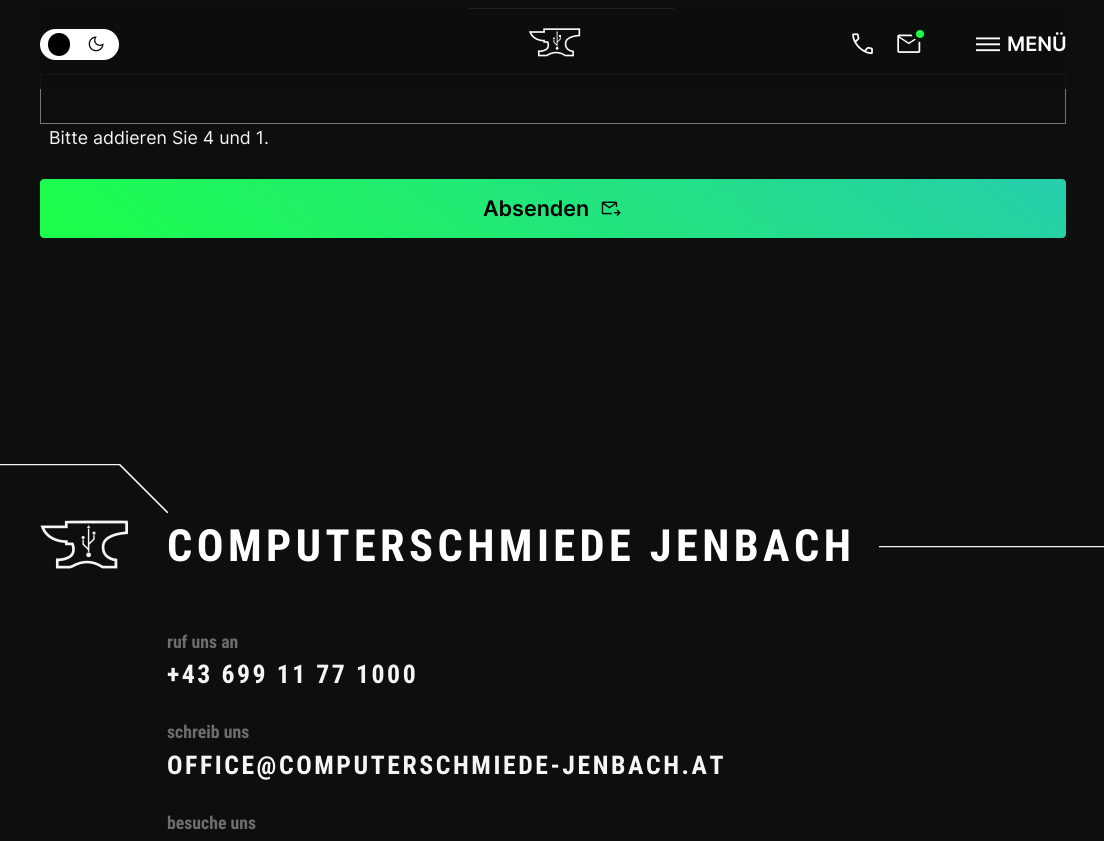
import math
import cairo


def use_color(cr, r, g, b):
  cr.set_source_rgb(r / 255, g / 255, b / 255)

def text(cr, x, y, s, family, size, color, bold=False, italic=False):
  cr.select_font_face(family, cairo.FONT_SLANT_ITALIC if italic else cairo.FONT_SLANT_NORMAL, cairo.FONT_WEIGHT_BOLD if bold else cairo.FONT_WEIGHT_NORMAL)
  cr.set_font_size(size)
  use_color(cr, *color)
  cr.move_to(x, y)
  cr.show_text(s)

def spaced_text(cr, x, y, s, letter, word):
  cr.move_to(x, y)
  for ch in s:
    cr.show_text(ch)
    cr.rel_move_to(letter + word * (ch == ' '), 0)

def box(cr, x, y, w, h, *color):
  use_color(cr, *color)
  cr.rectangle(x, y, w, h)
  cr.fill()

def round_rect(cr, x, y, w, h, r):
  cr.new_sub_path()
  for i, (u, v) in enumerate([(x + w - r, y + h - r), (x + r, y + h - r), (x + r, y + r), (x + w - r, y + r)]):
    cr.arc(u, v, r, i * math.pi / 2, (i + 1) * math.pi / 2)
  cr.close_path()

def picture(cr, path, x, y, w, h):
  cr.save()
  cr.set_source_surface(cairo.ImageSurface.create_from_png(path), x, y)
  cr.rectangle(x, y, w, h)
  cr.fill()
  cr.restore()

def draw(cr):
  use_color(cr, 13, 14, 14)
  cr.paint()
  box(cr, 469, 8, 205, 1, 245, 245, 245)
  cr.rectangle(40.5, 74.5, 1025, 49)
  use_color(cr, 117, 117, 117)
  cr.set_line_width(1)
  cr.stroke()
  cr.set_source_rgba(0.051, 0.055, 0.055, 0.91)
  cr.rectangle(40, 8, 1026, 81)
  cr.fill()
  use_color(cr, 255, 255, 255)
  round_rect(cr, 40, 29, 79, 31, 15.5)
  cr.fill()
  use_color(cr, 0, 0, 0)
  round_rect(cr, 48, 33, 22, 23, 11)
  cr.fill()
  picture(cr, "img_01.png", 88, 36, 16, 16)
  picture(cr, "img_02.png", 529, 28, 52, 29)
  picture(cr, "img_03.png", 852, 33, 21, 22)
  picture(cr, "img_04.png", 897, 34, 24, 19)
  use_color(cr, 28, 255, 73)
  cr.arc(920, 34, 4, 0, 2 * math.pi)
  cr.fill()
  picture(cr, "img_05.png", 976, 37, 24, 15)
  gradient = cairo.LinearGradient(504, 600, 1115, -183)
  gradient.add_color_stop_rgba(0, 0.11, 1, 0.286, 1)
  gradient.add_color_stop_rgba(1, 0.169, 0.714, 0.851, 1)
  cr.set_source(gradient)
  round_rect(cr, 40, 179, 1026, 59, 4)
  cr.fill()
  picture(cr, "img_06.png", 601, 201, 20, 15)
  picture(cr, "img_07.png", 40, 520, 88, 49)
  cr.save()
  cr.rectangle(0, 464, 119, 49)
  cr.clip()
  cr.new_path()
  cr.move_to(-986, 464)
  cr.line_to(119, 464)
  use_color(cr, 245, 245, 245)
  cr.set_line_width(2.5)
  cr.stroke()
  cr.restore()
  cr.save()
  cr.rectangle(119, 464, 49, 49)
  cr.clip()
  cr.new_path()
  cr.move_to(119, 464)
  cr.line_to(168, 513)
  use_color(cr, 245, 245, 245)
  cr.set_line_width(1.6)
  cr.stroke()
  cr.restore()
  cr.save()
  cr.rectangle(168, 546, 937, 3)
  cr.clip()
  cr.new_path()
  cr.move_to(167.5, 546)
  cr.line_to(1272.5, 546)
  use_color(cr, 245, 245, 245)
  cr.set_line_width(2.5)
  cr.stroke()
  cr.restore()
  box(cr, 168, 546, 711, 2, 13, 14, 14)
  text(cr, 1007, 51, "MENÜ", "Inter SemiBold", 20, (255, 255, 255))
  text(cr, 49, 144, "Bitte addieren Sie 4 und 1.", "Inter", 17.75, (245, 245, 245))
  text(cr, 483, 216, "Absenden", "Inter SemiBold", 21.5, (0, 0, 0))
  cr.select_font_face("Roboto Condensed", cairo.FONT_SLANT_NORMAL, cairo.FONT_WEIGHT_BOLD)
  cr.set_font_size(44.4)
  use_color(cr, 255, 255, 255)
  spaced_text(cr, 167, 561, "COMPUTERSCHMIEDE JENBACH", 4.4, 0)
  text(cr, 167, 648, "ruf uns an", "Roboto Condensed", 17.75, (110, 110, 110), bold=True)
  cr.set_font_size(25.75)
  use_color(cr, 245, 245, 245)
  spaced_text(cr, 167, 683, "+43 699 11 77 1000", 2.55, 0)
  text(cr, 167, 738, "schreib uns", "Roboto Condensed", 17.75, (110, 110, 110), bold=True)
  cr.set_font_size(25.75)
  use_color(cr, 245, 245, 245)
  spaced_text(cr, 167, 774, "OFFICE@COMPUTERSCHMIEDE-JENBACH.AT", 2.55, 0)
  text(cr, 167, 829, "besuche uns", "Roboto Condensed", 17.75, (110, 110, 110), bold=True)


surface = cairo.ImageSurface(cairo.FORMAT_RGB24, 1104, 841)
cr = cairo.Context(surface)
options = cairo.FontOptions()
options.set_hint_metrics(cairo.HINT_METRICS_OFF)
options.set_hint_style(cairo.HINT_STYLE_NONE)
cr.set_font_options(options)
cr.set_miter_limit(4)
draw(cr)
surface.write_to_png("out.png")
